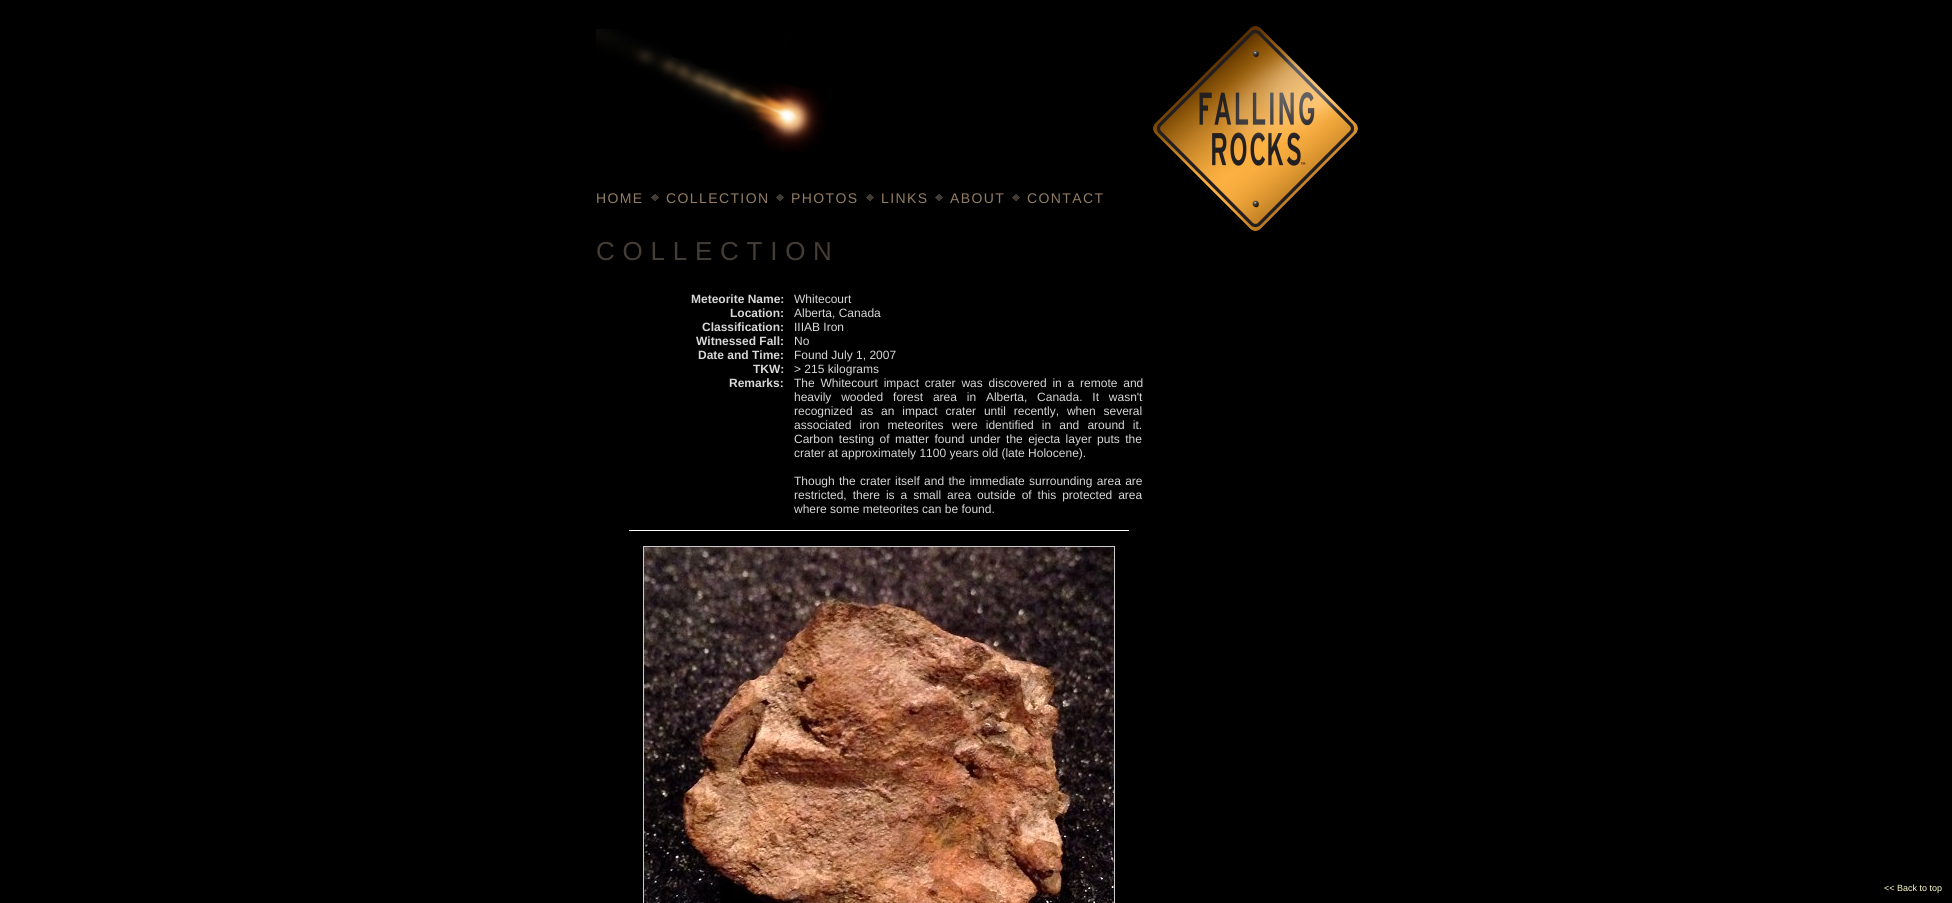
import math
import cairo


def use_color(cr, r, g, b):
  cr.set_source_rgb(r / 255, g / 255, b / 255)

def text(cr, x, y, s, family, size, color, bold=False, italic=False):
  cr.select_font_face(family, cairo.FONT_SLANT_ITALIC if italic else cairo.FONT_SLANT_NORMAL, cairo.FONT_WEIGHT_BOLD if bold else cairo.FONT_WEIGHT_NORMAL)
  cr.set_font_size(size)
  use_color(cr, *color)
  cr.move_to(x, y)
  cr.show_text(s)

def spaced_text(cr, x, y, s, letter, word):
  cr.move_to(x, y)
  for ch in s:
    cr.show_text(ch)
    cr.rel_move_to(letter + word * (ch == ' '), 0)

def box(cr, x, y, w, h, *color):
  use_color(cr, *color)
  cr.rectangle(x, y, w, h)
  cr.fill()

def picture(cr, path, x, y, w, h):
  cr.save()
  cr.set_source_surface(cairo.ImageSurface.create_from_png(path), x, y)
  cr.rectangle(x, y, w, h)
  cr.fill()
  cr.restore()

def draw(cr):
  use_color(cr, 0, 0, 0)
  cr.paint()
  picture(cr, "img_01.png", 596, 29, 231, 124)
  picture(cr, "img_02.png", 1153, 26, 205, 205)
  picture(cr, "img_03.png", 650, 193, 9, 8)
  picture(cr, "img_03.png", 775, 193, 9, 8)
  picture(cr, "img_03.png", 865, 193, 9, 8)
  picture(cr, "img_03.png", 934, 193, 9, 8)
  picture(cr, "img_03.png", 1011, 193, 9, 8)
  box(cr, 629, 530, 500, 1, 255, 255, 255)
  cr.rectangle(643.5, 546.5, 471, 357)
  use_color(cr, 204, 204, 204)
  cr.set_line_width(1)
  cr.stroke()
  picture(cr, "img_04.png", 644, 547, 470, 356)
  cr.select_font_face("Liberation Sans")
  cr.set_font_size(14)
  use_color(cr, 146, 125, 100)
  spaced_text(cr, 596, 203, "HOME", 1.4, 0)
  spaced_text(cr, 666, 203, "COLLECTION", 1.4, 0)
  spaced_text(cr, 791, 203, "PHOTOS", 1.4, 0)
  spaced_text(cr, 881, 203, "LINKS", 1.4, 0)
  spaced_text(cr, 950, 203, "ABOUT", 1.4, 0)
  spaced_text(cr, 1027, 203, "CONTACT", 1.4, 0)
  cr.set_font_size(26)
  use_color(cr, 68, 61, 53)
  spaced_text(cr, 596, 260, "COLLECTION", 7.75, 0)
  text(cr, 691, 303, "Meteorite Name:", "Liberation Sans", 12, (216, 216, 216), bold=True)
  text(cr, 794, 303, "Whitecourt", "Liberation Sans", 12, (216, 216, 216))
  text(cr, 730, 317, "Location:", "Liberation Sans", 12, (216, 216, 216), bold=True)
  text(cr, 794, 317, "Alberta, Canada", "Liberation Sans", 12, (216, 216, 216))
  text(cr, 702, 331, "Classification:", "Liberation Sans", 12, (216, 216, 216), bold=True)
  text(cr, 794, 331, "IIIAB Iron", "Liberation Sans", 12, (216, 216, 216))
  text(cr, 696, 345, "Witnessed Fall:", "Liberation Sans", 12, (216, 216, 216), bold=True)
  text(cr, 794, 345, "No", "Liberation Sans", 12, (216, 216, 216))
  text(cr, 698, 359, "Date and Time:", "Liberation Sans", 12, (216, 216, 216), bold=True)
  text(cr, 794, 359, "Found July 1, 2007", "Liberation Sans", 12, (216, 216, 216))
  text(cr, 753, 373, "TKW:", "Liberation Sans", 12, (216, 216, 216), bold=True)
  text(cr, 794, 373, "> 215 kilograms", "Liberation Sans", 12, (216, 216, 216))
  text(cr, 729, 387, "Remarks:", "Liberation Sans", 12, (216, 216, 216), bold=True)
  cr.select_font_face("Liberation Sans")
  spaced_text(cr, 794, 387, "The Whitecourt impact crater was discovered in a remote and", 0, 2.5)
  spaced_text(cr, 794, 401, "heavily wooded forest area in Alberta, Canada. It wasn't", 0, 6.5)
  spaced_text(cr, 794, 415, "recognized as an impact crater until recently, when several", 0, 4.5)
  spaced_text(cr, 794, 429, "associated iron meteorites were identified in and around it.", 0, 4.75)
  spaced_text(cr, 794, 443, "Carbon testing of matter found under the ejecta layer puts the", 0, 2.1)
  text(cr, 794, 457, "crater at approximately 1100 years old (late Holocene).", "Liberation Sans", 12, (216, 216, 216))
  spaced_text(cr, 794, 485, "Though the crater itself and the immediate surrounding area are", 0, 1)
  spaced_text(cr, 794, 499, "restricted, there is a small area outside of this protected area", 0, 2.6)
  text(cr, 794, 513, "where some meteorites can be found.", "Liberation Sans", 12, (216, 216, 216))
  text(cr, 1884, 891, "<< Back to top", "Liberation Sans", 9, (255, 255, 204))


surface = cairo.ImageSurface(cairo.FORMAT_RGB24, 1952, 903)
cr = cairo.Context(surface)
options = cairo.FontOptions()
options.set_hint_metrics(cairo.HINT_METRICS_OFF)
options.set_hint_style(cairo.HINT_STYLE_NONE)
cr.set_font_options(options)
cr.set_miter_limit(4)
draw(cr)
surface.write_to_png("out.png")
